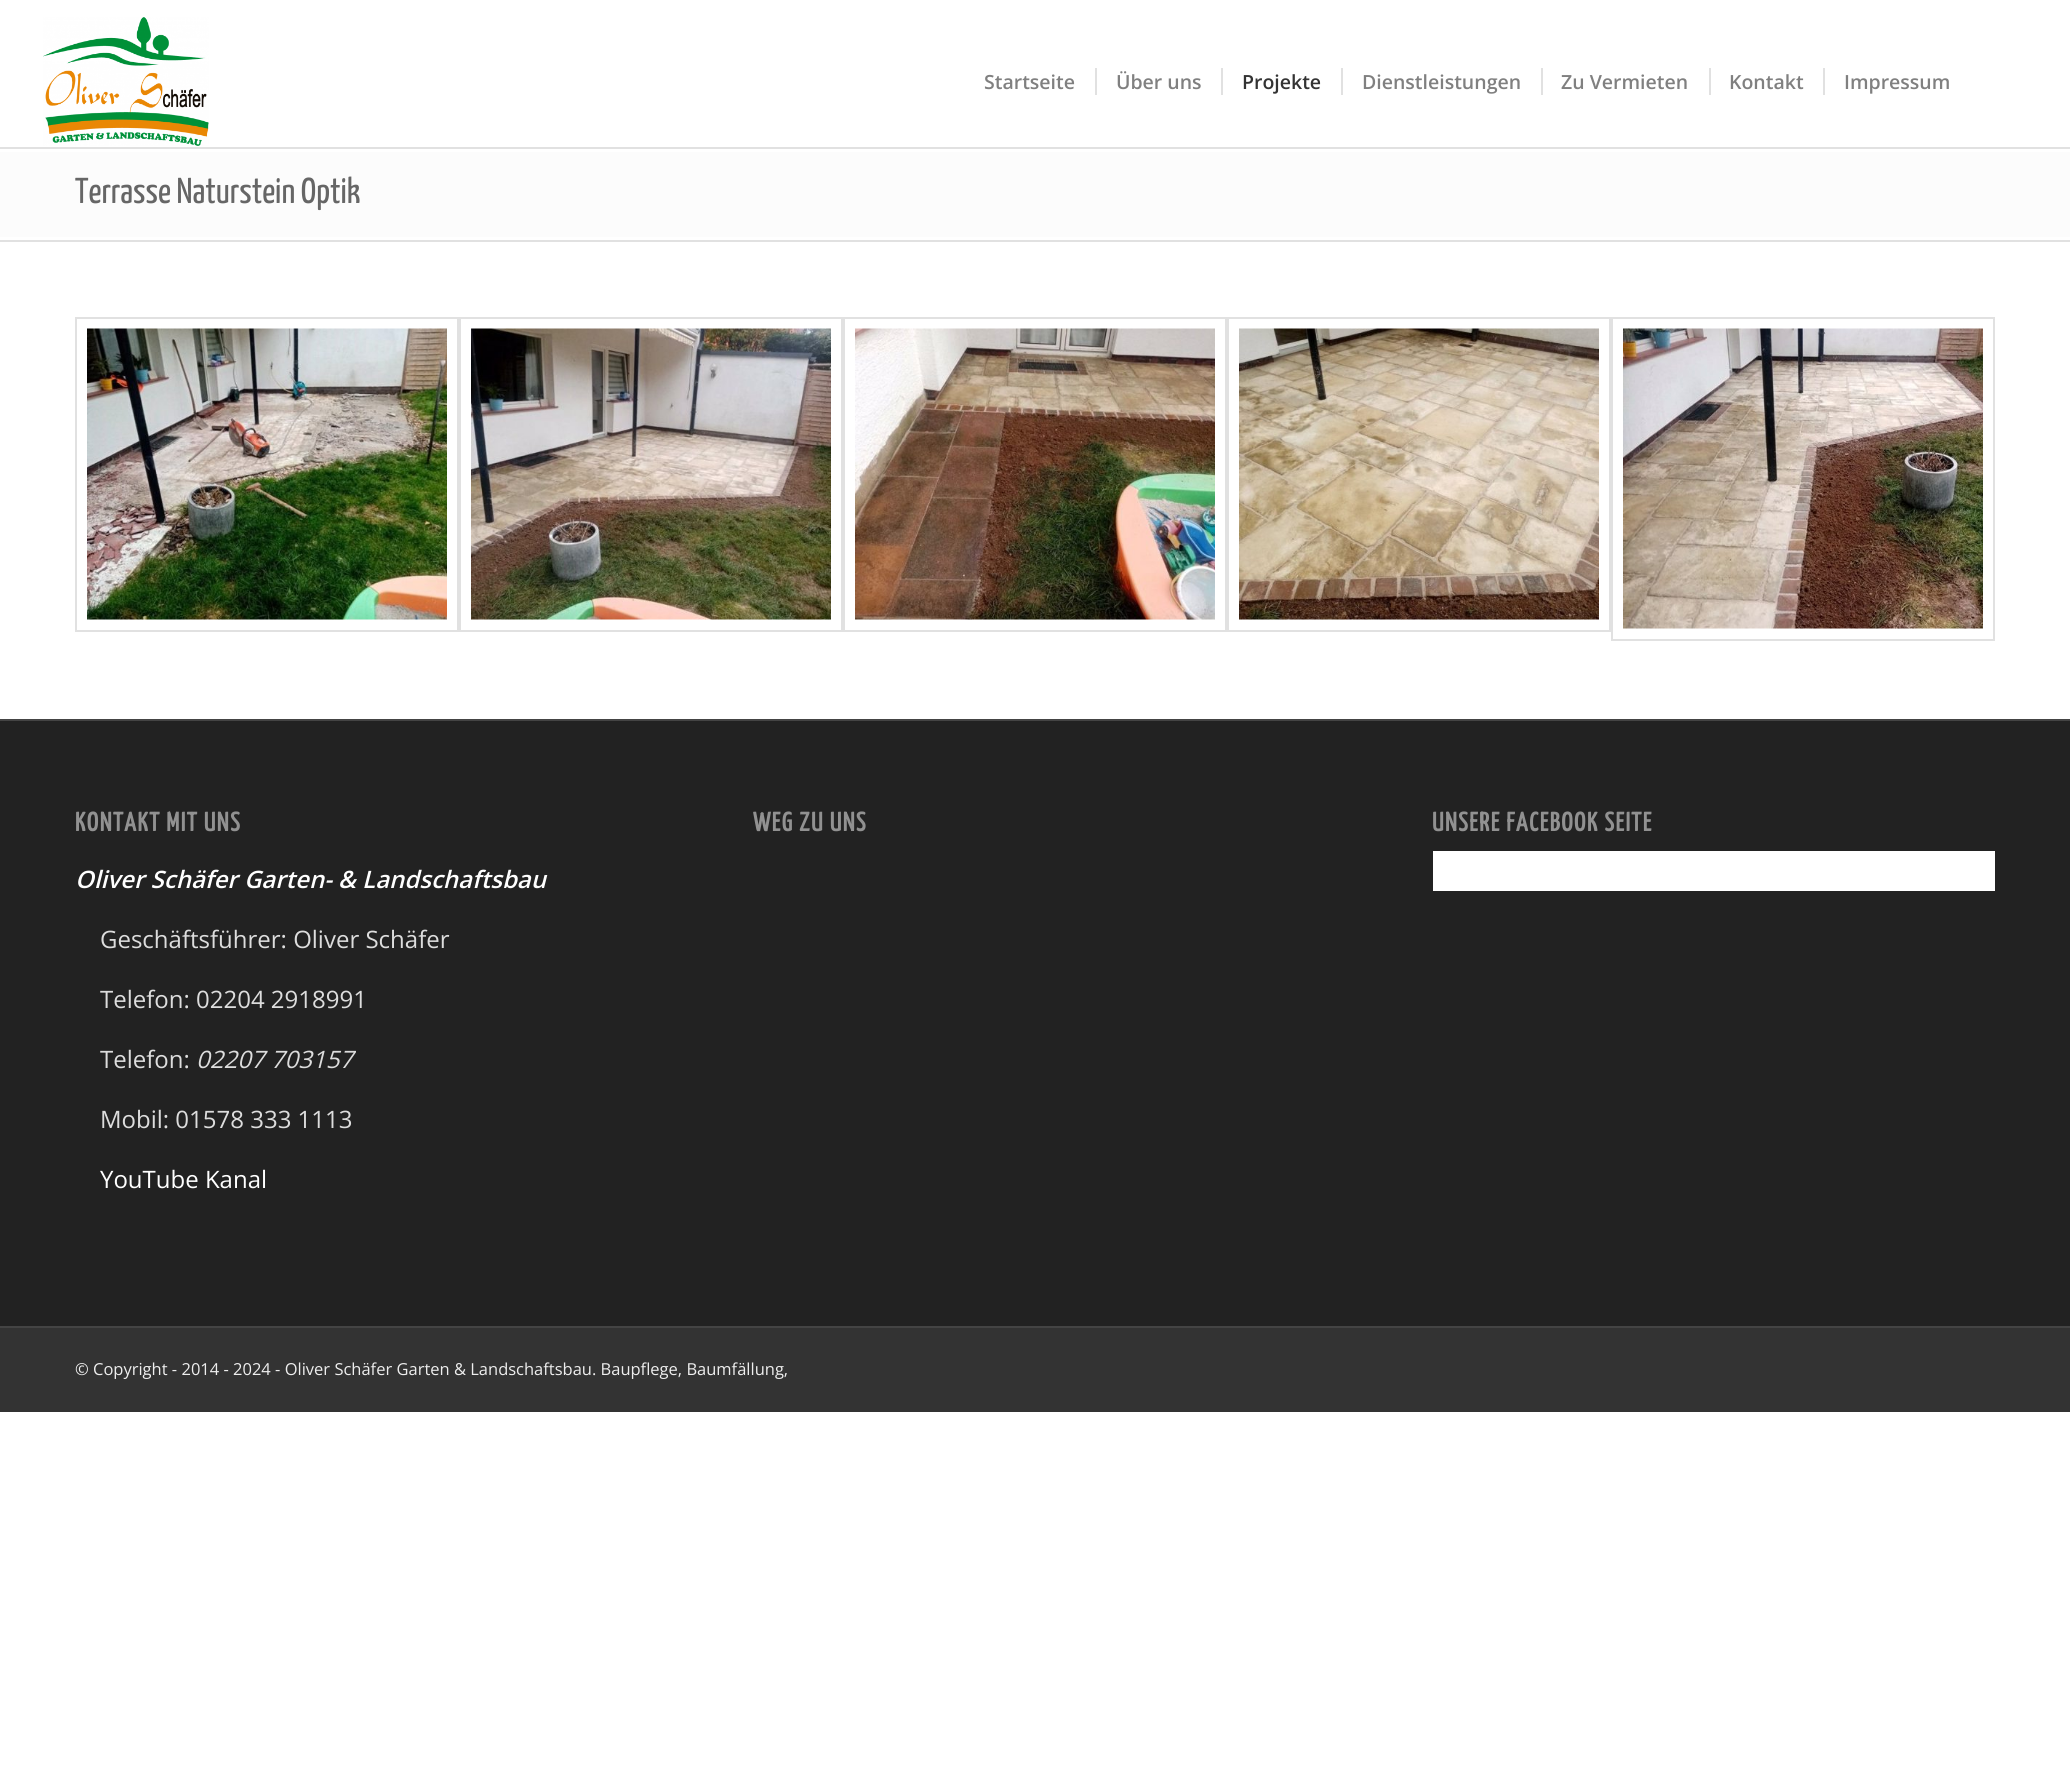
import math
import cairo


def use_color(cr, r, g, b):
  cr.set_source_rgb(r / 255, g / 255, b / 255)

def text(cr, x, y, s, family, size, color, bold=False, italic=False):
  cr.select_font_face(family, cairo.FONT_SLANT_ITALIC if italic else cairo.FONT_SLANT_NORMAL, cairo.FONT_WEIGHT_BOLD if bold else cairo.FONT_WEIGHT_NORMAL)
  cr.set_font_size(size)
  use_color(cr, *color)
  cr.move_to(x, y)
  cr.show_text(s)

def spaced_text(cr, x, y, s, letter, word):
  cr.move_to(x, y)
  for ch in s:
    cr.show_text(ch)
    cr.rel_move_to(letter + word * (ch == ' '), 0)

def box(cr, x, y, w, h, *color):
  use_color(cr, *color)
  cr.rectangle(x, y, w, h)
  cr.fill()

def picture(cr, path, x, y, w, h):
  cr.save()
  cr.set_source_surface(cairo.ImageSurface.create_from_png(path), x, y)
  cr.rectangle(x, y, w, h)
  cr.fill()
  cr.restore()

def draw(cr):
  use_color(cr, 255, 255, 255)
  cr.paint()
  box(cr, 0, 147, 2070, 2, 225, 225, 225)
  picture(cr, "img_01.png", 43, 17, 166, 129)
  box(cr, 1095, 68, 2, 27, 225, 225, 225)
  box(cr, 1221, 68, 2, 27, 225, 225, 225)
  box(cr, 1341, 68, 2, 27, 225, 225, 225)
  box(cr, 1541, 68, 2, 27, 225, 225, 225)
  box(cr, 1709, 68, 2, 27, 225, 225, 225)
  box(cr, 1823, 68, 2, 27, 225, 225, 225)
  box(cr, 0, 152, 2070, 85, 252, 252, 252)
  box(cr, 0, 240, 2070, 2, 225, 225, 225)
  cr.rectangle(76, 318, 382, 313)
  cr.stroke()
  picture(cr, "img_02.png", 87, 328, 360, 292)
  cr.rectangle(460, 318, 382, 313)
  cr.stroke()
  picture(cr, "img_03.png", 471, 328, 360, 292)
  cr.rectangle(844, 318, 382, 313)
  cr.stroke()
  picture(cr, "img_04.png", 855, 328, 360, 292)
  cr.rectangle(1228, 318, 382, 313)
  cr.stroke()
  picture(cr, "img_05.png", 1239, 328, 360, 292)
  cr.rectangle(1612, 318, 382, 322)
  cr.stroke()
  picture(cr, "img_06.png", 1623, 328, 360, 301)
  box(cr, 0, 721, 2070, 605, 34, 34, 34)
  box(cr, 0, 719, 2070, 2, 68, 68, 68)
  box(cr, 1433, 851, 562, 40, 255, 255, 255)
  box(cr, 0, 1328, 2070, 84, 51, 51, 51)
  box(cr, 0, 1326, 2070, 2, 68, 68, 68)
  text(cr, 984, 89, "Startseite", "Open Sans SemiBold", 19.5, (128, 128, 128))
  text(cr, 1116, 89, "Über uns", "Open Sans SemiBold", 19.5, (128, 128, 128))
  text(cr, 1242, 89, "Projekte", "Open Sans SemiBold", 19.5, (51, 51, 51))
  text(cr, 1362, 89, "Dienstleistungen", "Open Sans SemiBold", 19.5, (128, 128, 128))
  text(cr, 1561, 89, "Zu Vermieten", "Open Sans SemiBold", 19.5, (128, 128, 128))
  text(cr, 1729, 89, "Kontakt", "Open Sans SemiBold", 19.5, (128, 128, 128))
  text(cr, 1844, 89, "Impressum", "Open Sans SemiBold", 19.5, (128, 128, 128))
  text(cr, 75, 203, "Terrasse Naturstein Optik", "Yanone Kaffeesatz ExtraLight", 36, (102, 102, 102))
  cr.select_font_face("Yanone Kaffeesatz", cairo.FONT_SLANT_NORMAL, cairo.FONT_WEIGHT_BOLD)
  cr.set_font_size(26.5)
  use_color(cr, 145, 145, 145)
  spaced_text(cr, 75, 831, "KONTAKT MIT UNS", 1.5, 0)
  text(cr, 75, 888, "Oliver Schäfer Garten- & Landschaftsbau", "Open Sans SemiBold", 24, (255, 255, 255), italic=True)
  text(cr, 100, 948, "Geschäftsführer: Oliver Schäfer", "Open Sans", 24, (221, 221, 221))
  text(cr, 100, 1008, "Telefon: 02204 2918991", "Open Sans", 24, (221, 221, 221))
  text(cr, 100, 1068, "Telefon:", "Open Sans", 24, (221, 221, 221))
  text(cr, 196, 1068, "02207 703157", "Open Sans", 24, (221, 221, 221), italic=True)
  text(cr, 100, 1128, "Mobil: 01578 333 1113", "Open Sans", 24, (221, 221, 221))
  text(cr, 100, 1188, "YouTube Kanal", "Open Sans", 24, (255, 255, 255))
  cr.select_font_face("Yanone Kaffeesatz", cairo.FONT_SLANT_NORMAL, cairo.FONT_WEIGHT_BOLD)
  cr.set_font_size(26.5)
  use_color(cr, 145, 145, 145)
  spaced_text(cr, 753, 831, "WEG ZU UNS", 1.5, 0)
  cr.save()
  cr.rectangle(1433, 788, 562, 103)
  cr.clip()
  spaced_text(cr, 1432, 831, "UNSERE FACEBOOK SEITE", 1.5, 0)
  cr.restore()
  text(cr, 75, 1375, "© Copyright - 2014 - 2024 - Oliver Schäfer Garten & Landschaftsbau. Baupflege, Baumfällung,", "Open Sans", 16.5, (238, 238, 238))


surface = cairo.ImageSurface(cairo.FORMAT_RGB24, 2070, 1788)
cr = cairo.Context(surface)
options = cairo.FontOptions()
options.set_hint_metrics(cairo.HINT_METRICS_OFF)
options.set_hint_style(cairo.HINT_STYLE_NONE)
cr.set_font_options(options)
cr.set_miter_limit(4)
draw(cr)
surface.write_to_png("out.png")
